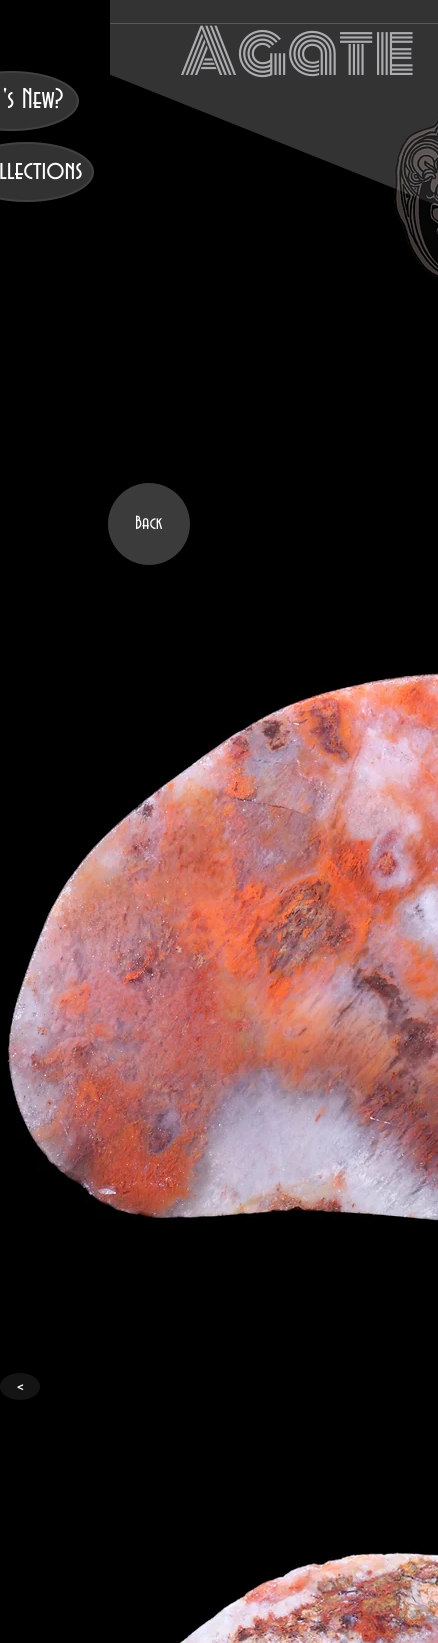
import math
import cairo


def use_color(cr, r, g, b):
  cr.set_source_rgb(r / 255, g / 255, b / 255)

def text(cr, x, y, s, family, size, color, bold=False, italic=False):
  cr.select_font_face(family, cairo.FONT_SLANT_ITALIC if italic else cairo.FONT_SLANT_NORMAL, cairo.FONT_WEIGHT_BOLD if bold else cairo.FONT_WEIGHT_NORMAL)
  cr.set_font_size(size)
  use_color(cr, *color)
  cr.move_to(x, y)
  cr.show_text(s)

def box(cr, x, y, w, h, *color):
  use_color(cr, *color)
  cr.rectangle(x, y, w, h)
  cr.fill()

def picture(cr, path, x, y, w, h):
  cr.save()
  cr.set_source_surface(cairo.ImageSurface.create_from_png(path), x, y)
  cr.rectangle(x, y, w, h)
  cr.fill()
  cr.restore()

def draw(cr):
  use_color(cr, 0, 0, 0)
  cr.paint()
  box(cr, 110, 0, 328, 24, 51, 51, 51)
  cr.save()
  cr.rectangle(110, 0, 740, 224)
  cr.clip()
  cr.set_source_rgba(0.8, 0.8, 0.8, 0.25)
  cr.new_path()
  cr.move_to(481, 23)
  cr.line_to(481, 223)
  cr.line_to(-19, 23)
  cr.close_path()
  cr.fill()
  cr.restore()
  picture(cr, "img_01.png", 394, 119, 44, 159)
  use_color(cr, 50, 50, 50)
  cr.new_path()
  cr.move_to(11.5, 71)
  cr.curve_to(49, 71, 79, 84.5, 79, 101)
  cr.curve_to(79, 117.5, 49, 131, 11.5, 131)
  cr.curve_to(-26, 131, -56, 117.5, -56, 101)
  cr.curve_to(-56, 84.5, -26, 71, 11.5, 71)
  cr.close_path()
  cr.fill()
  cr.new_path()
  cr.move_to(11.5, 72)
  cr.curve_to(48, 72, 78, 85, 78, 101)
  cr.curve_to(78, 117, 48, 130, 11.5, 130)
  cr.curve_to(-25, 130, -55, 117, -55, 101)
  cr.curve_to(-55, 85, -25, 72, 11.5, 72)
  cr.close_path()
  cr.set_source_rgba(0.8, 0.8, 0.8, 0.1)
  cr.stroke()
  use_color(cr, 50, 50, 50)
  cr.new_path()
  cr.move_to(26.5, 142)
  cr.curve_to(64, 142, 94, 155.5, 94, 172)
  cr.curve_to(94, 188.5, 64, 202, 26.5, 202)
  cr.curve_to(-11, 202, -41, 188.5, -41, 172)
  cr.curve_to(-41, 155.5, -11, 142, 26.5, 142)
  cr.close_path()
  cr.fill()
  cr.new_path()
  cr.move_to(26.5, 143)
  cr.curve_to(63, 143, 93, 156, 93, 172)
  cr.curve_to(93, 188, 63, 201, 26.5, 201)
  cr.curve_to(-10, 201, -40, 188, -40, 172)
  cr.curve_to(-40, 156, -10, 143, 26.5, 143)
  cr.close_path()
  cr.set_source_rgba(0.8, 0.8, 0.8, 0.1)
  cr.stroke()
  use_color(cr, 59, 59, 59)
  cr.arc(149, 524, 41, 0, 2 * math.pi)
  cr.fill()
  picture(cr, "img_02.png", 7, 670, 431, 551)
  use_color(cr, 20, 20, 20)
  cr.new_path()
  cr.move_to(20, 1373)
  cr.curve_to(31, 1373, 40, 1379, 40, 1386.5)
  cr.curve_to(40, 1394, 31, 1400, 20, 1400)
  cr.curve_to(9, 1400, 0, 1394, 0, 1386.5)
  cr.curve_to(0, 1379, 9, 1373, 20, 1373)
  cr.close_path()
  cr.fill()
  picture(cr, "img_03.png", 169, 1549, 269, 94)
  text(cr, 180, 75, "Agate", "Monoton", 61, (171, 173, 176))
  text(cr, 3, 108, "'s New?", "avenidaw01", 30, (255, 255, 255))
  text(cr, -1, 179, "llections", "avenidaw01", 30, (255, 255, 255))
  text(cr, 135, 529, "Back", "avenidaw01", 20, (255, 255, 255))
  text(cr, 17, 1390, "<", "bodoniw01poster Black", 11, (255, 255, 255))


surface = cairo.ImageSurface(cairo.FORMAT_RGB24, 438, 1643)
cr = cairo.Context(surface)
options = cairo.FontOptions()
options.set_hint_metrics(cairo.HINT_METRICS_OFF)
options.set_hint_style(cairo.HINT_STYLE_NONE)
cr.set_font_options(options)
cr.set_miter_limit(4)
draw(cr)
surface.write_to_png("out.png")
